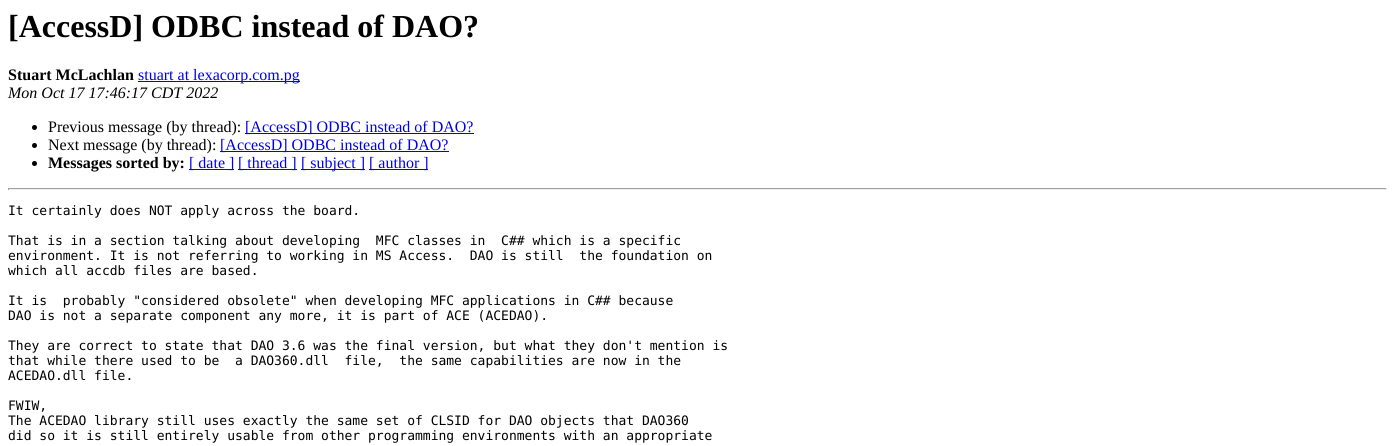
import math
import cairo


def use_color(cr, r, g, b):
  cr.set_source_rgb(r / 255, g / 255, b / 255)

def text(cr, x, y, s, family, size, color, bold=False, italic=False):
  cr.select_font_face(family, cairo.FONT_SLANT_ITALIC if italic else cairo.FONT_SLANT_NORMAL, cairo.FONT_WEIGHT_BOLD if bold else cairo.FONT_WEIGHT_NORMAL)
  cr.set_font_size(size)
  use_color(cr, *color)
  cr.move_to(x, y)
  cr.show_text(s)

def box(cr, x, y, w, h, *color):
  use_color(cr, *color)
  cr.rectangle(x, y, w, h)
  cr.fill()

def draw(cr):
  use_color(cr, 255, 255, 255)
  cr.paint()
  box(cr, 138, 81, 162, 1, 0, 0, 238)
  use_color(cr, 0, 0, 0)
  cr.arc(34.5, 127.5, 2.5, 0, 2 * math.pi)
  cr.fill()
  box(cr, 245, 133, 229, 1, 0, 0, 238)
  use_color(cr, 0, 0, 0)
  cr.arc(34.5, 145.5, 2.5, 0, 2 * math.pi)
  cr.fill()
  box(cr, 220, 151, 229, 1, 0, 0, 238)
  use_color(cr, 0, 0, 0)
  cr.arc(34.5, 163.5, 2.5, 0, 2 * math.pi)
  cr.fill()
  box(cr, 189, 169, 45, 1, 0, 0, 238)
  box(cr, 238, 169, 59, 1, 0, 0, 238)
  box(cr, 301, 169, 64, 1, 0, 0, 238)
  box(cr, 369, 169, 59, 1, 0, 0, 238)
  box(cr, 8, 188, 1379, 1, 159, 159, 159)
  box(cr, 1386, 188, 1, 2, 238, 238, 238)
  box(cr, 8, 189, 1379, 1, 238, 238, 238)
  box(cr, 8, 188, 1, 2, 159, 159, 159)
  text(cr, 8, 37, "[AccessD] ODBC instead of DAO?", "Liberation Serif", 32, (0, 0, 0), bold=True)
  text(cr, 8, 80, "Stuart McLachlan", "Liberation Serif", 16, (0, 0, 0), bold=True)
  text(cr, 138, 80, "stuart at lexacorp.com.pg", "Liberation Serif", 16, (0, 0, 238))
  text(cr, 8, 98, "Mon Oct 17 17:46:17 CDT 2022", "Liberation Serif", 16, (0, 0, 0), italic=True)
  text(cr, 48, 132, "Previous message (by thread):", "Liberation Serif", 16, (0, 0, 0))
  text(cr, 245, 132, "[AccessD] ODBC instead of DAO?", "Liberation Serif", 16, (0, 0, 238))
  text(cr, 48, 150, "Next message (by thread):", "Liberation Serif", 16, (0, 0, 0))
  text(cr, 220, 150, "[AccessD] ODBC instead of DAO?", "Liberation Serif", 16, (0, 0, 238))
  text(cr, 48, 168, "Messages sorted by:", "Liberation Serif", 16, (0, 0, 0), bold=True)
  text(cr, 189, 168, "[ date ]", "Liberation Serif", 16, (0, 0, 238))
  text(cr, 238, 168, "[ thread ]", "Liberation Serif", 16, (0, 0, 238))
  text(cr, 301, 168, "[ subject ]", "Liberation Serif", 16, (0, 0, 238))
  text(cr, 369, 168, "[ author ]", "Liberation Serif", 16, (0, 0, 238))
  text(cr, 8, 215, "It certainly does NOT apply across the board.", "DejaVu Sans Mono", 13, (0, 0, 0))
  text(cr, 8, 245, "That is in a section talking about developing  MFC classes in  C## which is a specific", "DejaVu Sans Mono", 13, (0, 0, 0))
  text(cr, 8, 260, "environment. It is not referring to working in MS Access.  DAO is still  the foundation on", "DejaVu Sans Mono", 13, (0, 0, 0))
  text(cr, 8, 275, "which all accdb files are based.", "DejaVu Sans Mono", 13, (0, 0, 0))
  text(cr, 8, 305, "It is  probably \"considered obsolete\" when developing MFC applications in C## because", "DejaVu Sans Mono", 13, (0, 0, 0))
  text(cr, 8, 320, "DAO is not a separate component any more, it is part of ACE (ACEDAO).", "DejaVu Sans Mono", 13, (0, 0, 0))
  text(cr, 8, 350, "They are correct to state that DAO 3.6 was the final version, but what they don't mention is", "DejaVu Sans Mono", 13, (0, 0, 0))
  text(cr, 8, 365, "that while there used to be  a DAO360.dll  file,  the same capabilities are now in the", "DejaVu Sans Mono", 13, (0, 0, 0))
  text(cr, 8, 380, "ACEDAO.dll file.", "DejaVu Sans Mono", 13, (0, 0, 0))
  text(cr, 8, 410, "FWIW,", "DejaVu Sans Mono", 13, (0, 0, 0))
  text(cr, 8, 425, "The ACEDAO library still uses exactly the same set of CLSID for DAO objects that DAO360", "DejaVu Sans Mono", 13, (0, 0, 0))
  text(cr, 8, 440, "did so it is still entirely usable from other programming environments with an appropriate", "DejaVu Sans Mono", 13, (0, 0, 0))


surface = cairo.ImageSurface(cairo.FORMAT_RGB24, 1395, 446)
cr = cairo.Context(surface)
options = cairo.FontOptions()
options.set_hint_metrics(cairo.HINT_METRICS_OFF)
options.set_hint_style(cairo.HINT_STYLE_NONE)
cr.set_font_options(options)
cr.set_miter_limit(4)
draw(cr)
surface.write_to_png("out.png")
